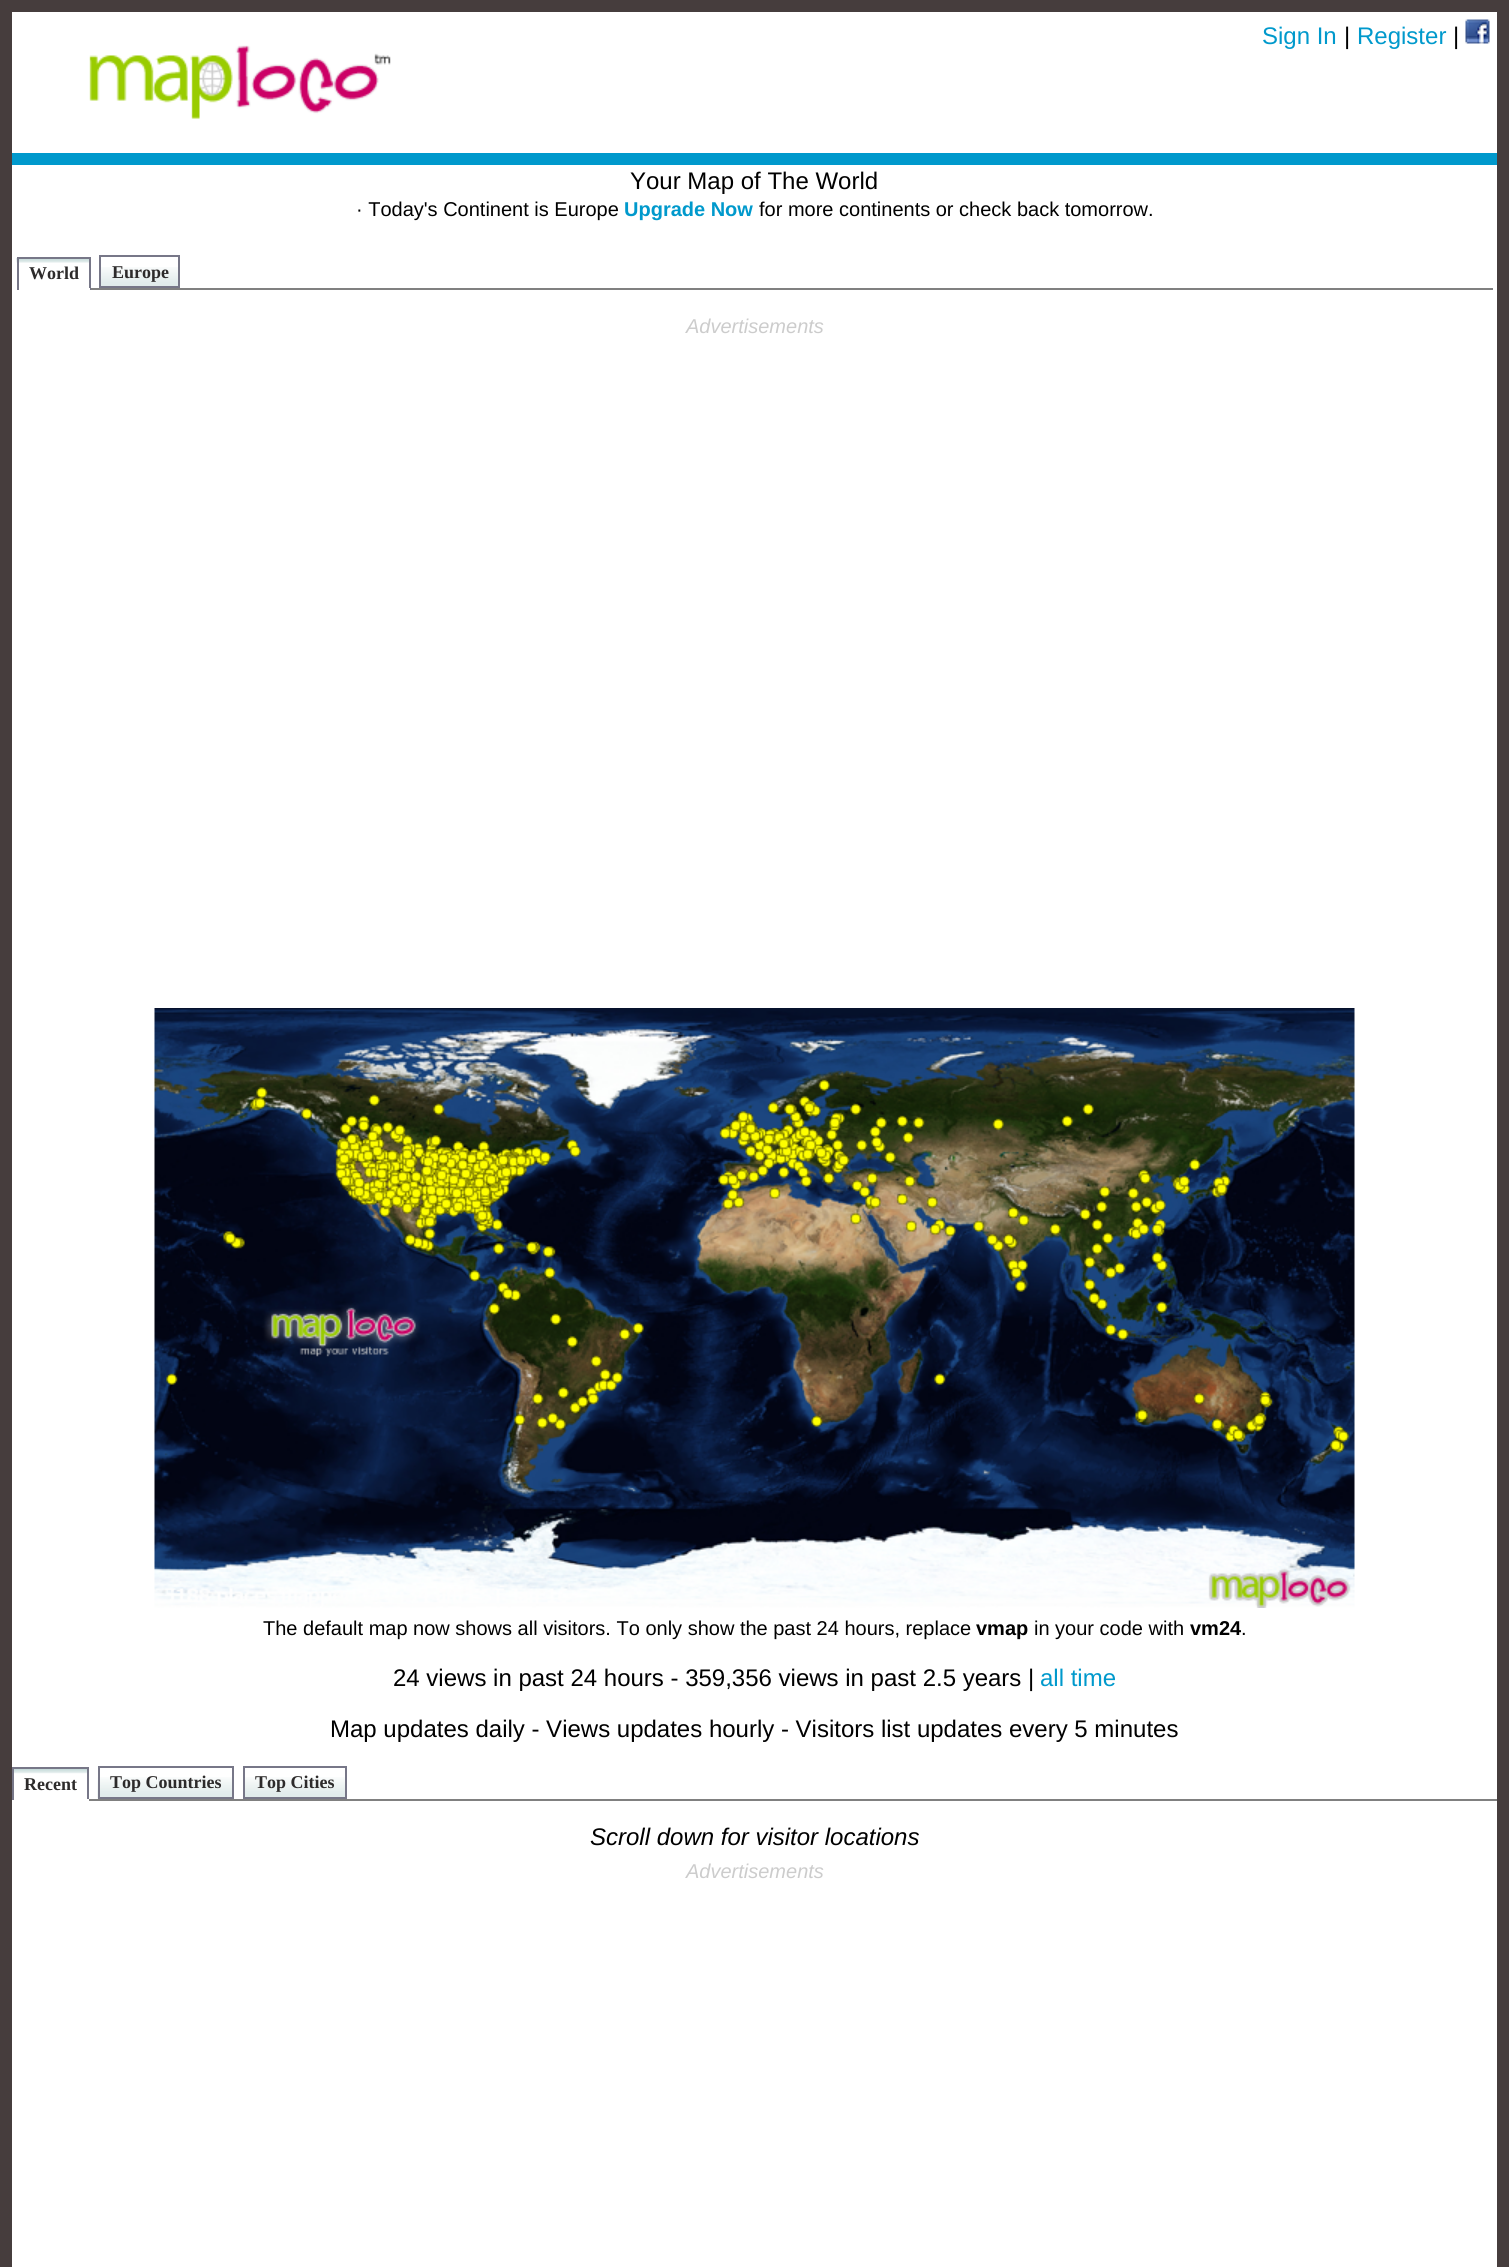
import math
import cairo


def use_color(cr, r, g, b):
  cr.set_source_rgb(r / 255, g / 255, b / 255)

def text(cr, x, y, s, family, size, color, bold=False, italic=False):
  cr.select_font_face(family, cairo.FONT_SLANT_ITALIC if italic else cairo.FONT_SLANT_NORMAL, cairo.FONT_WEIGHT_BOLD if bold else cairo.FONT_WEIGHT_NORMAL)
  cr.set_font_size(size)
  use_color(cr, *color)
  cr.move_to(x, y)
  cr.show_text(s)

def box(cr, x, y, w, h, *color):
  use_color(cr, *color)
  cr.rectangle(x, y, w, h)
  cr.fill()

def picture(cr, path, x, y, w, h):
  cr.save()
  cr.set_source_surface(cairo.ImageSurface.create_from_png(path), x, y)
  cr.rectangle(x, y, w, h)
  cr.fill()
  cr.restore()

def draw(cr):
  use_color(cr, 70, 61, 61)
  cr.paint()
  box(cr, 12, 12, 1485, 2255, 255, 255, 255)
  box(cr, 12, 153, 1485, 12, 0, 153, 204)
  picture(cr, "img_01.png", 1465, 19, 25, 25)
  picture(cr, "img_02.png", 89, 45, 302, 74)
  box(cr, 91, 288, 1402, 2, 128, 128, 128)
  picture(cr, "img_03.png", 16, 258, 73, 5)
  box(cr, 17, 257, 73, 2, 119, 119, 136)
  box(cr, 89, 257, 2, 33, 119, 119, 136)
  box(cr, 89, 288, 1, 2, 255, 255, 255)
  box(cr, 17, 257, 2, 33, 119, 119, 136)
  picture(cr, "img_04.png", 101, 267, 77, 19)
  cr.rectangle(100, 256, 79, 31)
  cr.stroke()
  picture(cr, "img_05.png", 154, 1008, 1201, 600)
  box(cr, 89, 1799, 1408, 2, 128, 128, 128)
  picture(cr, "img_06.png", 14, 1769, 73, 5)
  picture(cr, "img_07.png", 97, 1777, 135, 22)
  cr.rectangle(99, 1767, 134, 31)
  use_color(cr, 119, 119, 136)
  cr.stroke()
  picture(cr, "img_08.png", 245, 1777, 100, 20)
  cr.rectangle(244, 1767, 102, 31)
  cr.stroke()
  box(cr, 12, 1767, 77, 2, 119, 119, 136)
  box(cr, 87, 1767, 2, 33, 119, 119, 136)
  box(cr, 87, 1799, 2, 1, 255, 255, 255)
  box(cr, 12, 1767, 2, 33, 119, 119, 136)
  text(cr, 1262, 44, "Sign In", "Liberation Sans", 24, (0, 153, 204))
  text(cr, 1344, 44, "|", "Liberation Sans", 24, (0, 0, 0))
  text(cr, 1357, 44, "Register", "Liberation Sans", 24, (0, 153, 204))
  text(cr, 1453, 44, "|", "Liberation Sans", 24, (0, 0, 0))
  text(cr, 630, 189, "Your Map of The World", "Liberation Sans", 24, (0, 0, 0))
  text(cr, 356, 216, "· Today's Continent is Europe", "Liberation Sans", 20, (0, 0, 0))
  text(cr, 624, 216, "Upgrade Now", "Liberation Sans", 20, (0, 153, 204), bold=True)
  text(cr, 759, 216, "for more continents or check back tomorrow.", "Liberation Sans", 20, (0, 0, 0))
  text(cr, 29, 279, "World", "Liberation Serif", 18, (45, 43, 43), bold=True)
  text(cr, 112, 278, "Europe", "Liberation Serif", 18, (45, 43, 43), bold=True)
  text(cr, 686, 333, "Advertisements", "Liberation Sans", 20, (204, 204, 204), italic=True)
  text(cr, 263, 1635, "The default map now shows all visitors. To only show the past 24 hours, replace", "Liberation Sans", 20, (0, 0, 0))
  text(cr, 976, 1635, "vmap", "Liberation Sans", 20, (0, 0, 0), bold=True)
  text(cr, 1034, 1635, "in your code with", "Liberation Sans", 20, (0, 0, 0))
  text(cr, 1190, 1635, "vm24", "Liberation Sans", 20, (0, 0, 0), bold=True)
  text(cr, 1241, 1635, ".", "Liberation Sans", 20, (0, 0, 0))
  text(cr, 393, 1686, "24 views in past 24 hours - 359,356 views in past 2.5 years |", "Liberation Sans", 24, (0, 0, 0))
  text(cr, 1040, 1686, "all time", "Liberation Sans", 24, (0, 153, 204))
  text(cr, 330, 1737, "Map updates daily - Views updates hourly - Visitors list updates every 5 minutes", "Liberation Sans", 24, (0, 0, 0))
  text(cr, 110, 1788, "Top Countries", "Liberation Serif", 18, (45, 43, 43), bold=True)
  text(cr, 255, 1788, "Top Cities", "Liberation Serif", 18, (45, 43, 43), bold=True)
  text(cr, 24, 1790, "Recent", "Liberation Serif", 18, (45, 43, 43), bold=True)
  text(cr, 590, 1845, "Scroll down for visitor locations", "Liberation Sans", 24, (0, 0, 0), italic=True)
  text(cr, 686, 1878, "Advertisements", "Liberation Sans", 20, (204, 204, 204), italic=True)


surface = cairo.ImageSurface(cairo.FORMAT_RGB24, 1509, 2267)
cr = cairo.Context(surface)
options = cairo.FontOptions()
options.set_hint_metrics(cairo.HINT_METRICS_OFF)
options.set_hint_style(cairo.HINT_STYLE_NONE)
cr.set_font_options(options)
cr.set_miter_limit(4)
draw(cr)
surface.write_to_png("out.png")
